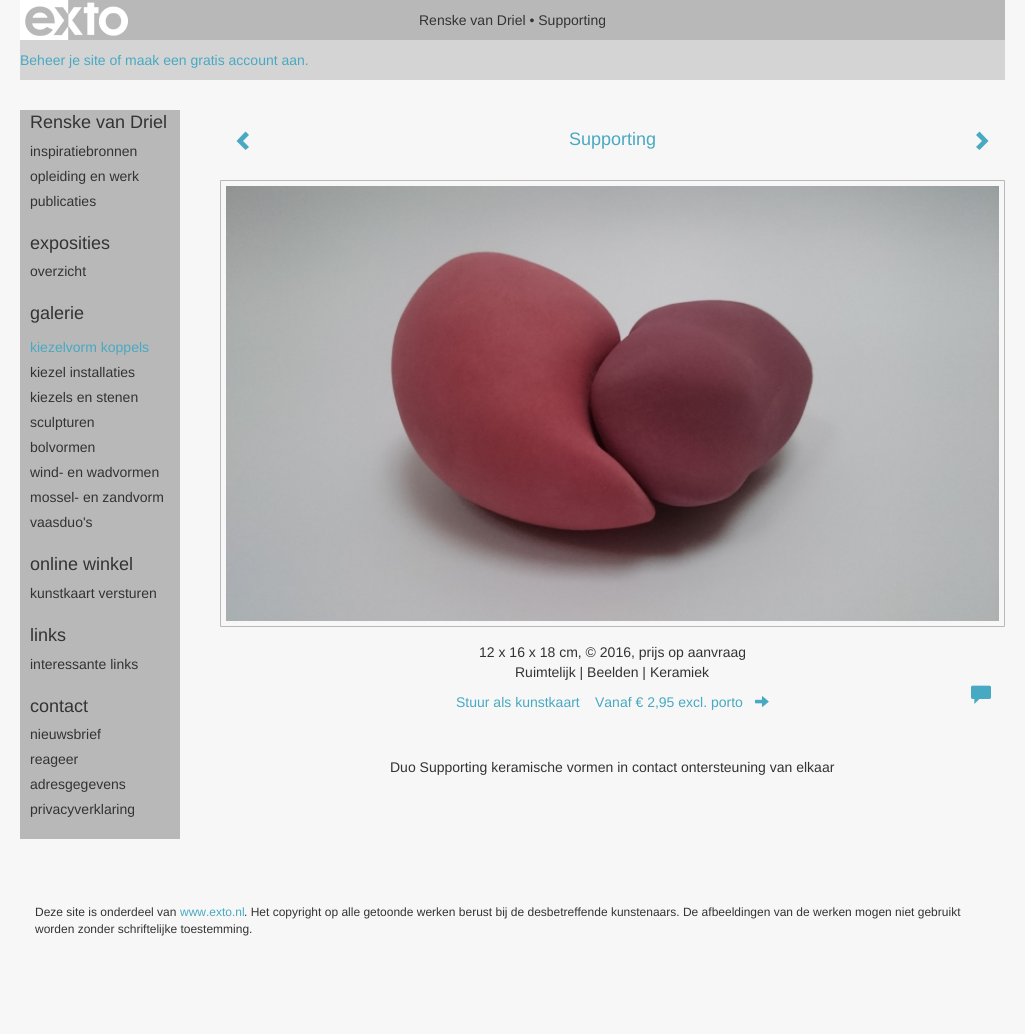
import math
import cairo


def use_color(cr, r, g, b):
  cr.set_source_rgb(r / 255, g / 255, b / 255)

def text(cr, x, y, s, family, size, color, bold=False, italic=False):
  cr.select_font_face(family, cairo.FONT_SLANT_ITALIC if italic else cairo.FONT_SLANT_NORMAL, cairo.FONT_WEIGHT_BOLD if bold else cairo.FONT_WEIGHT_NORMAL)
  cr.set_font_size(size)
  use_color(cr, *color)
  cr.move_to(x, y)
  cr.show_text(s)

def box(cr, x, y, w, h, *color):
  use_color(cr, *color)
  cr.rectangle(x, y, w, h)
  cr.fill()

def round_rect(cr, x, y, w, h, r):
  cr.new_sub_path()
  for i, (u, v) in enumerate([(x + w - r, y + h - r), (x + r, y + h - r), (x + r, y + r), (x + w - r, y + r)]):
    cr.arc(u, v, r, i * math.pi / 2, (i + 1) * math.pi / 2)
  cr.close_path()

def picture(cr, path, x, y, w, h):
  cr.save()
  cr.set_source_surface(cairo.ImageSurface.create_from_png(path), x, y)
  cr.rectangle(x, y, w, h)
  cr.fill()
  cr.restore()

def draw(cr):
  use_color(cr, 248, 247, 247)
  cr.paint()
  box(cr, 25, 0, 980, 40, 184, 184, 184)
  picture(cr, "img_01.png", 20, 0, 108, 40)
  box(cr, 20, 40, 985, 40, 212, 212, 212)
  box(cr, 20, 110, 160, 729, 184, 184, 184)
  use_color(cr, 71, 169, 194)
  cr.new_path()
  cr.move_to(249, 135)
  cr.line_to(243, 141)
  cr.line_to(249, 147)
  cr.line_to(245.5, 150)
  cr.line_to(236.5, 141)
  cr.line_to(245.5, 131.5)
  cr.close_path()
  cr.fill()
  cr.new_path()
  cr.move_to(988.5, 141)
  cr.line_to(979.5, 150)
  cr.line_to(976, 147)
  cr.line_to(982, 141)
  cr.line_to(976, 135)
  cr.line_to(979.5, 131.5)
  cr.close_path()
  cr.fill()
  round_rect(cr, 220.5, 180.5, 784, 446, 0.5)
  use_color(cr, 184, 184, 184)
  cr.set_line_width(1)
  cr.stroke()
  picture(cr, "img_02.png", 226, 186, 773, 435)
  picture(cr, "img_03.png", 755, 696, 14, 11)
  picture(cr, "img_04.png", 971, 685, 20, 19)
  text(cr, 419, 25, "Renske van Driel • Supporting", "Liberation Sans", 14, (51, 51, 51))
  text(cr, 20, 65, "Beheer je site of maak een gratis account aan.", "Liberation Sans", 14, (71, 169, 194))
  text(cr, 30, 128, "Renske van Driel", "Liberation Sans", 18, (51, 51, 51))
  text(cr, 30, 156, "inspiratiebronnen", "Liberation Sans", 14, (51, 51, 51))
  text(cr, 30, 181, "opleiding en werk", "Liberation Sans", 14, (51, 51, 51))
  text(cr, 30, 206, "publicaties", "Liberation Sans", 14, (51, 51, 51))
  text(cr, 30, 249, "exposities", "Liberation Sans", 18, (51, 51, 51))
  text(cr, 30, 276, "overzicht", "Liberation Sans", 14, (51, 51, 51))
  text(cr, 30, 319, "galerie", "Liberation Sans", 18, (51, 51, 51))
  text(cr, 30, 352, "kiezelvorm koppels", "Liberation Sans", 14, (71, 169, 194))
  text(cr, 30, 377, "kiezel installaties", "Liberation Sans", 14, (51, 51, 51))
  text(cr, 30, 402, "kiezels en stenen", "Liberation Sans", 14, (51, 51, 51))
  text(cr, 30, 427, "sculpturen", "Liberation Sans", 14, (51, 51, 51))
  text(cr, 30, 452, "bolvormen", "Liberation Sans", 14, (51, 51, 51))
  text(cr, 30, 477, "wind- en wadvormen", "Liberation Sans", 14, (51, 51, 51))
  text(cr, 30, 502, "mossel- en zandvorm", "Liberation Sans", 14, (51, 51, 51))
  text(cr, 30, 527, "vaasduo's", "Liberation Sans", 14, (51, 51, 51))
  text(cr, 30, 570, "online winkel", "Liberation Sans", 18, (51, 51, 51))
  text(cr, 30, 598, "kunstkaart versturen", "Liberation Sans", 14, (51, 51, 51))
  text(cr, 30, 641, "links", "Liberation Sans", 18, (51, 51, 51))
  text(cr, 30, 669, "interessante links", "Liberation Sans", 14, (51, 51, 51))
  text(cr, 30, 712, "contact", "Liberation Sans", 18, (51, 51, 51))
  text(cr, 30, 739, "nieuwsbrief", "Liberation Sans", 14, (51, 51, 51))
  text(cr, 30, 764, "reageer", "Liberation Sans", 14, (51, 51, 51))
  text(cr, 30, 789, "adresgegevens", "Liberation Sans", 14, (51, 51, 51))
  text(cr, 30, 814, "privacyverklaring", "Liberation Sans", 14, (51, 51, 51))
  text(cr, 569, 145, "Supporting", "Liberation Sans", 18, (71, 169, 194))
  text(cr, 479, 657, "12 x 16 x 18 cm, © 2016, prijs op aanvraag", "Liberation Sans", 14, (51, 51, 51))
  text(cr, 515, 677, "Ruimtelijk | Beelden | Keramiek", "Liberation Sans", 14, (51, 51, 51))
  text(cr, 456, 707, "Stuur als kunstkaart", "Liberation Sans", 14, (71, 169, 194))
  text(cr, 595, 707, "Vanaf € 2,95 excl. porto", "Liberation Sans", 14, (71, 169, 194))
  text(cr, 390, 772, "Duo Supporting keramische vormen in contact ontersteuning van elkaar", "Liberation Sans", 14, (51, 51, 51))
  text(cr, 35, 916, "Deze site is onderdeel van", "Liberation Sans", 12, (51, 51, 51))
  text(cr, 180, 916, "www.exto.nl", "Liberation Sans", 12, (71, 169, 194))
  text(cr, 244, 916, ". Het copyright op alle getoonde werken berust bij de desbetreffende kunstenaars. De afbeeldingen van de werken mogen niet gebruikt", "Liberation Sans", 12, (51, 51, 51))
  text(cr, 35, 933, "worden zonder schriftelijke toestemming.", "Liberation Sans", 12, (51, 51, 51))


surface = cairo.ImageSurface(cairo.FORMAT_RGB24, 1025, 1034)
cr = cairo.Context(surface)
options = cairo.FontOptions()
options.set_hint_metrics(cairo.HINT_METRICS_OFF)
options.set_hint_style(cairo.HINT_STYLE_NONE)
cr.set_font_options(options)
cr.set_miter_limit(4)
draw(cr)
surface.write_to_png("out.png")
